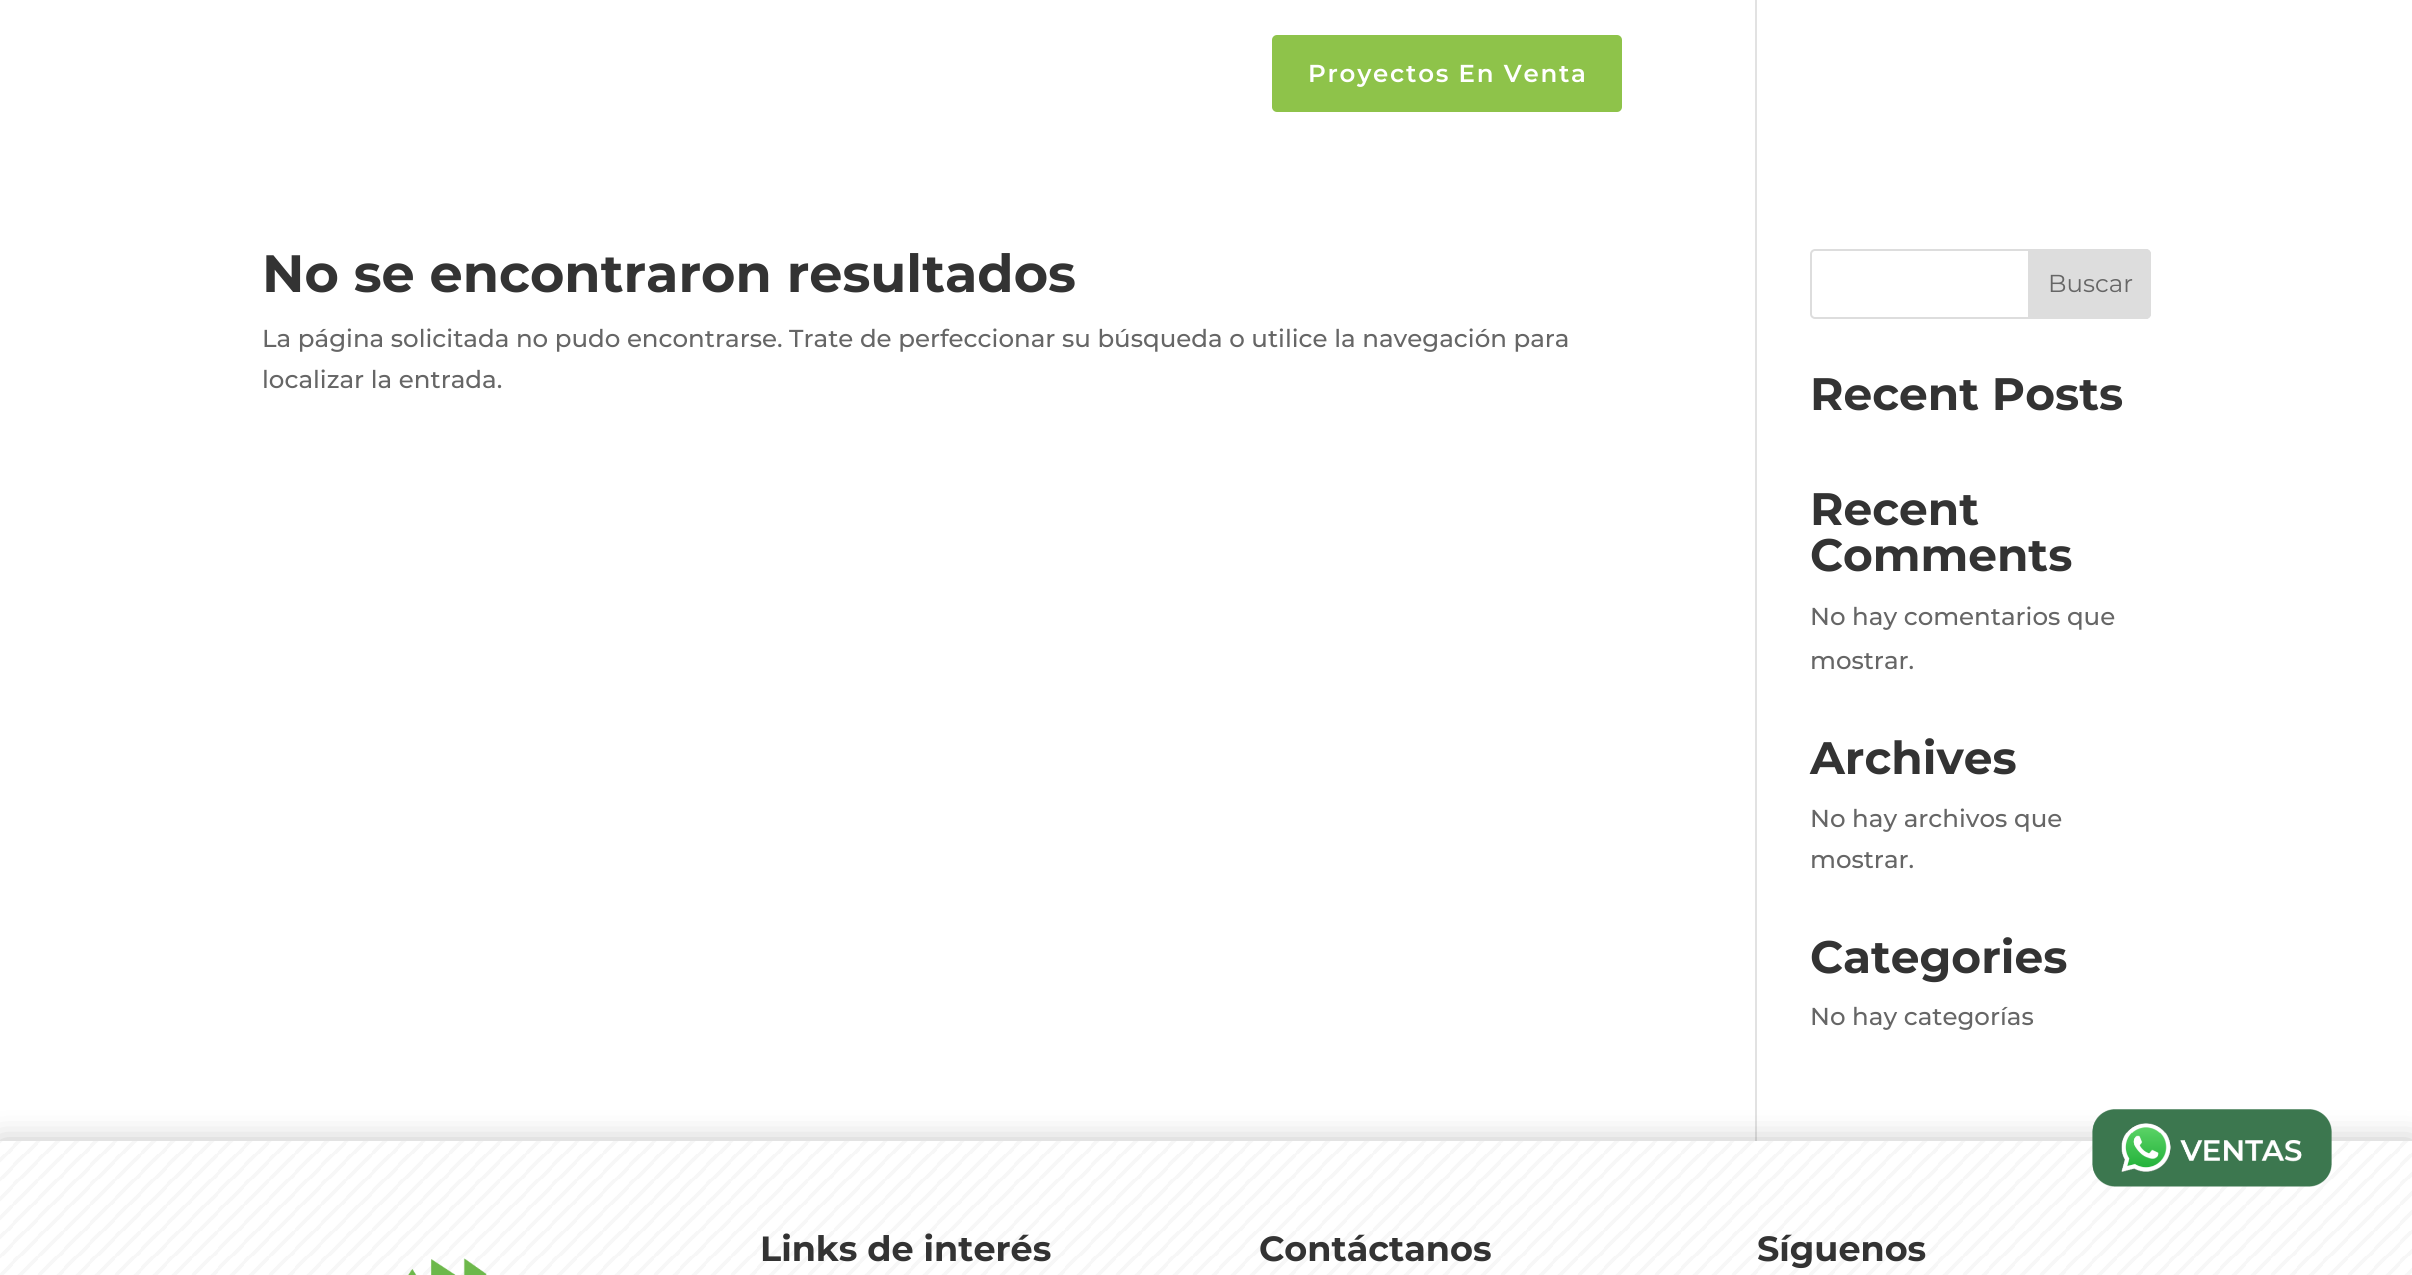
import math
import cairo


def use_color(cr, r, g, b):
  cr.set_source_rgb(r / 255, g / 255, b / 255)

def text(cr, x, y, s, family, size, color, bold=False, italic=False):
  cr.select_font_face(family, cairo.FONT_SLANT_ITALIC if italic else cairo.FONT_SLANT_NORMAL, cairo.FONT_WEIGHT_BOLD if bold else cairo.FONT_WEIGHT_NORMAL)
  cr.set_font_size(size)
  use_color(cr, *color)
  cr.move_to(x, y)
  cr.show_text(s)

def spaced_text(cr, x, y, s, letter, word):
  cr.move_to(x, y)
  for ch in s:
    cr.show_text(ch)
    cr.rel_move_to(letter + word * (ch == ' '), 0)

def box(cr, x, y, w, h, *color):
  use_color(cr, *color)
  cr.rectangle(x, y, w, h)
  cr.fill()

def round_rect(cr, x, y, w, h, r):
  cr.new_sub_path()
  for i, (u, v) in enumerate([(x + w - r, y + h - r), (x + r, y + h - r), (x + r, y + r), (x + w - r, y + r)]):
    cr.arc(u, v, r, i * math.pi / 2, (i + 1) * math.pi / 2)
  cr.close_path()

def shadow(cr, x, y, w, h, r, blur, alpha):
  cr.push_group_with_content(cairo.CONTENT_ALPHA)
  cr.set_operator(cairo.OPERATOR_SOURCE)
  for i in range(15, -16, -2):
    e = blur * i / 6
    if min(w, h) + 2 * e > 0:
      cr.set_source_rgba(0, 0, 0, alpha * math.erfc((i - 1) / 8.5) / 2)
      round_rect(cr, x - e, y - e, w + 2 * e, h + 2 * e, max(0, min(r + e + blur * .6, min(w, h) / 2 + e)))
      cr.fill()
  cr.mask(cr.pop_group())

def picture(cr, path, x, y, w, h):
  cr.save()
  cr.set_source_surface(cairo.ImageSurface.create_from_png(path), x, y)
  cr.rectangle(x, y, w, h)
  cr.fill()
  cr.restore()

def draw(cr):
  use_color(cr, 255, 255, 255)
  cr.paint()
  use_color(cr, 142, 195, 74)
  round_rect(cr, 1272, 35, 350, 77, 5)
  cr.fill()
  box(cr, 1755, 0, 2, 1141, 226, 226, 226)
  round_rect(cr, 1811, 250, 339, 68, 4)
  use_color(cr, 221, 221, 221)
  cr.stroke()
  cr.new_path()
  cr.move_to(2029, 250)
  cr.line_to(2146, 250)
  cr.curve_to(2148, 250, 2150, 252, 2150, 254)
  cr.line_to(2150, 314)
  cr.curve_to(2150, 316, 2148, 318, 2146, 318)
  cr.line_to(2029, 318)
  cr.close_path()
  cr.fill_preserve()
  cr.stroke()
  use_color(cr, 0, 0, 0)
  shadow(cr, 0, 1145, 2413, 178, 0, 16, 0.3)
  box(cr, 0, 1141, 2412, 134, 255, 255, 255)
  picture(cr, "img_01.png", 0, 1141, 2412, 134)
  picture(cr, "img_02.png", 408, 1258, 79, 17)
  picture(cr, "img_03.png", 2092, 1109, 240, 78)
  cr.select_font_face("Montserrat SemiBold")
  cr.set_font_size(24.5)
  spaced_text(cr, 1308, 82, "Proyectos En Venta", 1.75, 0)
  text(cr, 262, 292, "No se encontraron resultados", "Montserrat", 52.5, (51, 51, 51), bold=True)
  text(cr, 262, 347, "La página solicitada no pudo encontrarse. Trate de perfeccionar su búsqueda o utilice la navegación para", "Montserrat Medium", 24.5, (102, 102, 102))
  text(cr, 262, 388, "localizar la entrada.", "Montserrat Medium", 24.5, (102, 102, 102))
  text(cr, 2048, 292, "Buscar", "Montserrat", 24.5, (102, 102, 102))
  text(cr, 1810, 410, "Recent Posts", "Montserrat", 45.5, (51, 51, 51), bold=True)
  text(cr, 1810, 525, "Recent", "Montserrat", 45.5, (51, 51, 51), bold=True)
  text(cr, 1810, 571, "Comments", "Montserrat", 45.5, (51, 51, 51), bold=True)
  text(cr, 1810, 625, "No hay comentarios que", "Montserrat Medium", 24.5, (102, 102, 102))
  text(cr, 1810, 669, "mostrar.", "Montserrat Medium", 24.5, (102, 102, 102))
  text(cr, 1810, 774, "Archives", "Montserrat", 45.5, (51, 51, 51), bold=True)
  text(cr, 1810, 827, "No hay archivos que", "Montserrat Medium", 24.5, (102, 102, 102))
  text(cr, 1810, 868, "mostrar.", "Montserrat Medium", 24.5, (102, 102, 102))
  text(cr, 1810, 973, "Categories", "Montserrat", 45.5, (51, 51, 51), bold=True)
  text(cr, 1810, 1025, "No hay categorías", "Montserrat Medium", 24.5, (102, 102, 102))
  text(cr, 760, 1261, "Links de interés", "Montserrat", 35, (51, 51, 51), bold=True)
  text(cr, 1259, 1261, "Contáctanos", "Montserrat", 35, (51, 51, 51), bold=True)
  text(cr, 1757, 1261, "Síguenos", "Montserrat", 35, (51, 51, 51), bold=True)


surface = cairo.ImageSurface(cairo.FORMAT_RGB24, 2412, 1275)
cr = cairo.Context(surface)
options = cairo.FontOptions()
options.set_hint_metrics(cairo.HINT_METRICS_OFF)
options.set_hint_style(cairo.HINT_STYLE_NONE)
cr.set_font_options(options)
cr.set_miter_limit(4)
draw(cr)
surface.write_to_png("out.png")
